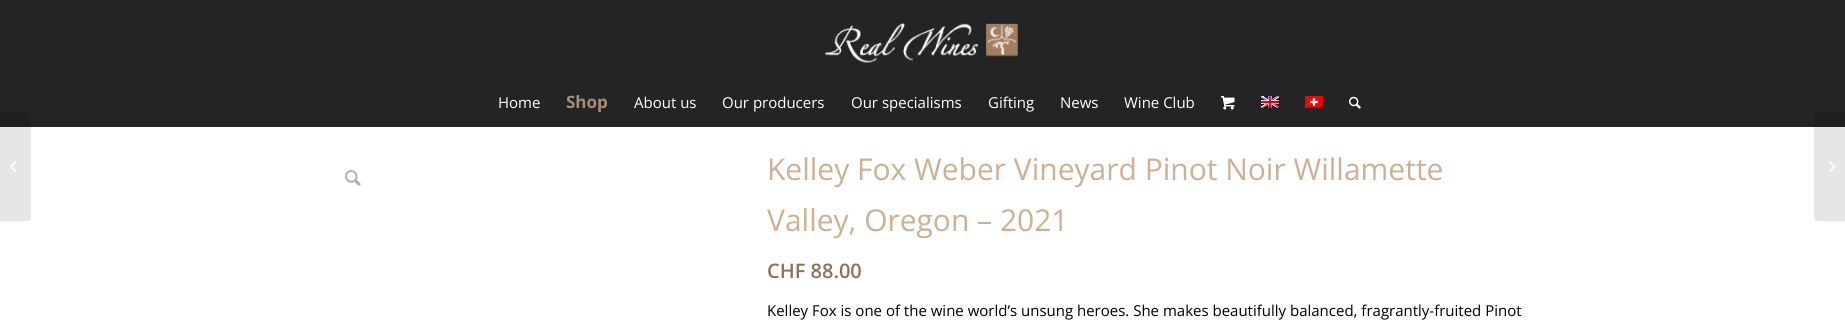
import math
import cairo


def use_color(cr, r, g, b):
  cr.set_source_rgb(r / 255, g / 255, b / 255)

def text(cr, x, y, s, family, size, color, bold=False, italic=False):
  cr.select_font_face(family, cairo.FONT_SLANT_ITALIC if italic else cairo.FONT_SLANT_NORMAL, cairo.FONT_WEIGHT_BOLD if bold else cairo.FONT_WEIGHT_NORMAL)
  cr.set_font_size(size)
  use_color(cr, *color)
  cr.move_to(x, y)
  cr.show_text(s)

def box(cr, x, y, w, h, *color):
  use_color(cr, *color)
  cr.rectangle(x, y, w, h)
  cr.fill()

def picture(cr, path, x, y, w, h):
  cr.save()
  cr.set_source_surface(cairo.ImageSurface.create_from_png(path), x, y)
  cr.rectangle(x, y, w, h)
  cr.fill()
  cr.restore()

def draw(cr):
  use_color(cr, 255, 255, 255)
  cr.paint()
  box(cr, 0, 0, 1845, 127, 34, 36, 38)
  picture(cr, "img_01.png", 824, 22, 194, 41)
  picture(cr, "img_02.png", 1221, 96, 14, 14)
  picture(cr, "img_03.png", 1261, 96, 18, 12)
  picture(cr, "img_04.png", 1305, 96, 18, 12)
  picture(cr, "img_05.png", 1349, 96, 12, 13)
  cr.set_source_rgba(0, 0, 0, 0.1)
  cr.new_path()
  cr.move_to(0, 111)
  cr.line_to(27, 111)
  cr.curve_to(29, 111, 31, 113, 31, 115)
  cr.line_to(31, 217)
  cr.curve_to(31, 219, 29, 221, 27, 221)
  cr.line_to(0, 221)
  cr.close_path()
  cr.fill()
  picture(cr, "img_06.png", 10, 161, 7, 11)
  picture(cr, "img_07.png", 345, 170, 16, 16)
  cr.new_path()
  cr.move_to(1818, 111)
  cr.line_to(1845, 111)
  cr.line_to(1845, 221)
  cr.line_to(1818, 221)
  cr.curve_to(1816, 221, 1814, 219, 1814, 217)
  cr.line_to(1814, 115)
  cr.curve_to(1814, 113, 1816, 111, 1818, 111)
  cr.close_path()
  cr.fill()
  picture(cr, "img_08.png", 1829, 161, 7, 11)
  text(cr, 498, 108, "Home", "Open Sans", 15, (255, 255, 255))
  text(cr, 566, 108, "Shop", "Open Sans", 17, (170, 140, 116), bold=True)
  text(cr, 634, 108, "About us", "Open Sans", 15, (255, 255, 255))
  text(cr, 722, 108, "Our producers", "Open Sans", 15, (255, 255, 255))
  text(cr, 851, 108, "Our specialisms", "Open Sans", 15, (255, 255, 255))
  text(cr, 988, 108, "Gifting", "Open Sans", 15, (255, 255, 255))
  text(cr, 1060, 108, "News", "Open Sans", 15, (255, 255, 255))
  text(cr, 1124, 108, "Wine Club", "Open Sans", 15, (255, 255, 255))
  text(cr, 767, 180, "Kelley Fox Weber Vineyard Pinot Noir Willamette", "Open Sans", 30, (204, 177, 147))
  text(cr, 767, 231, "Valley, Oregon – 2021", "Open Sans", 30, (204, 177, 147))
  text(cr, 767, 278, "CHF 88.00", "Open Sans SemiBold", 20, (144, 113, 88))
  text(cr, 767, 316, "Kelley Fox is one of the wine world’s unsung heroes. She makes beautifully balanced, fragrantly-fruited Pinot", "Open Sans", 15, (0, 0, 0))


surface = cairo.ImageSurface(cairo.FORMAT_RGB24, 1845, 332)
cr = cairo.Context(surface)
options = cairo.FontOptions()
options.set_hint_metrics(cairo.HINT_METRICS_OFF)
options.set_hint_style(cairo.HINT_STYLE_NONE)
cr.set_font_options(options)
cr.set_miter_limit(4)
draw(cr)
surface.write_to_png("out.png")
